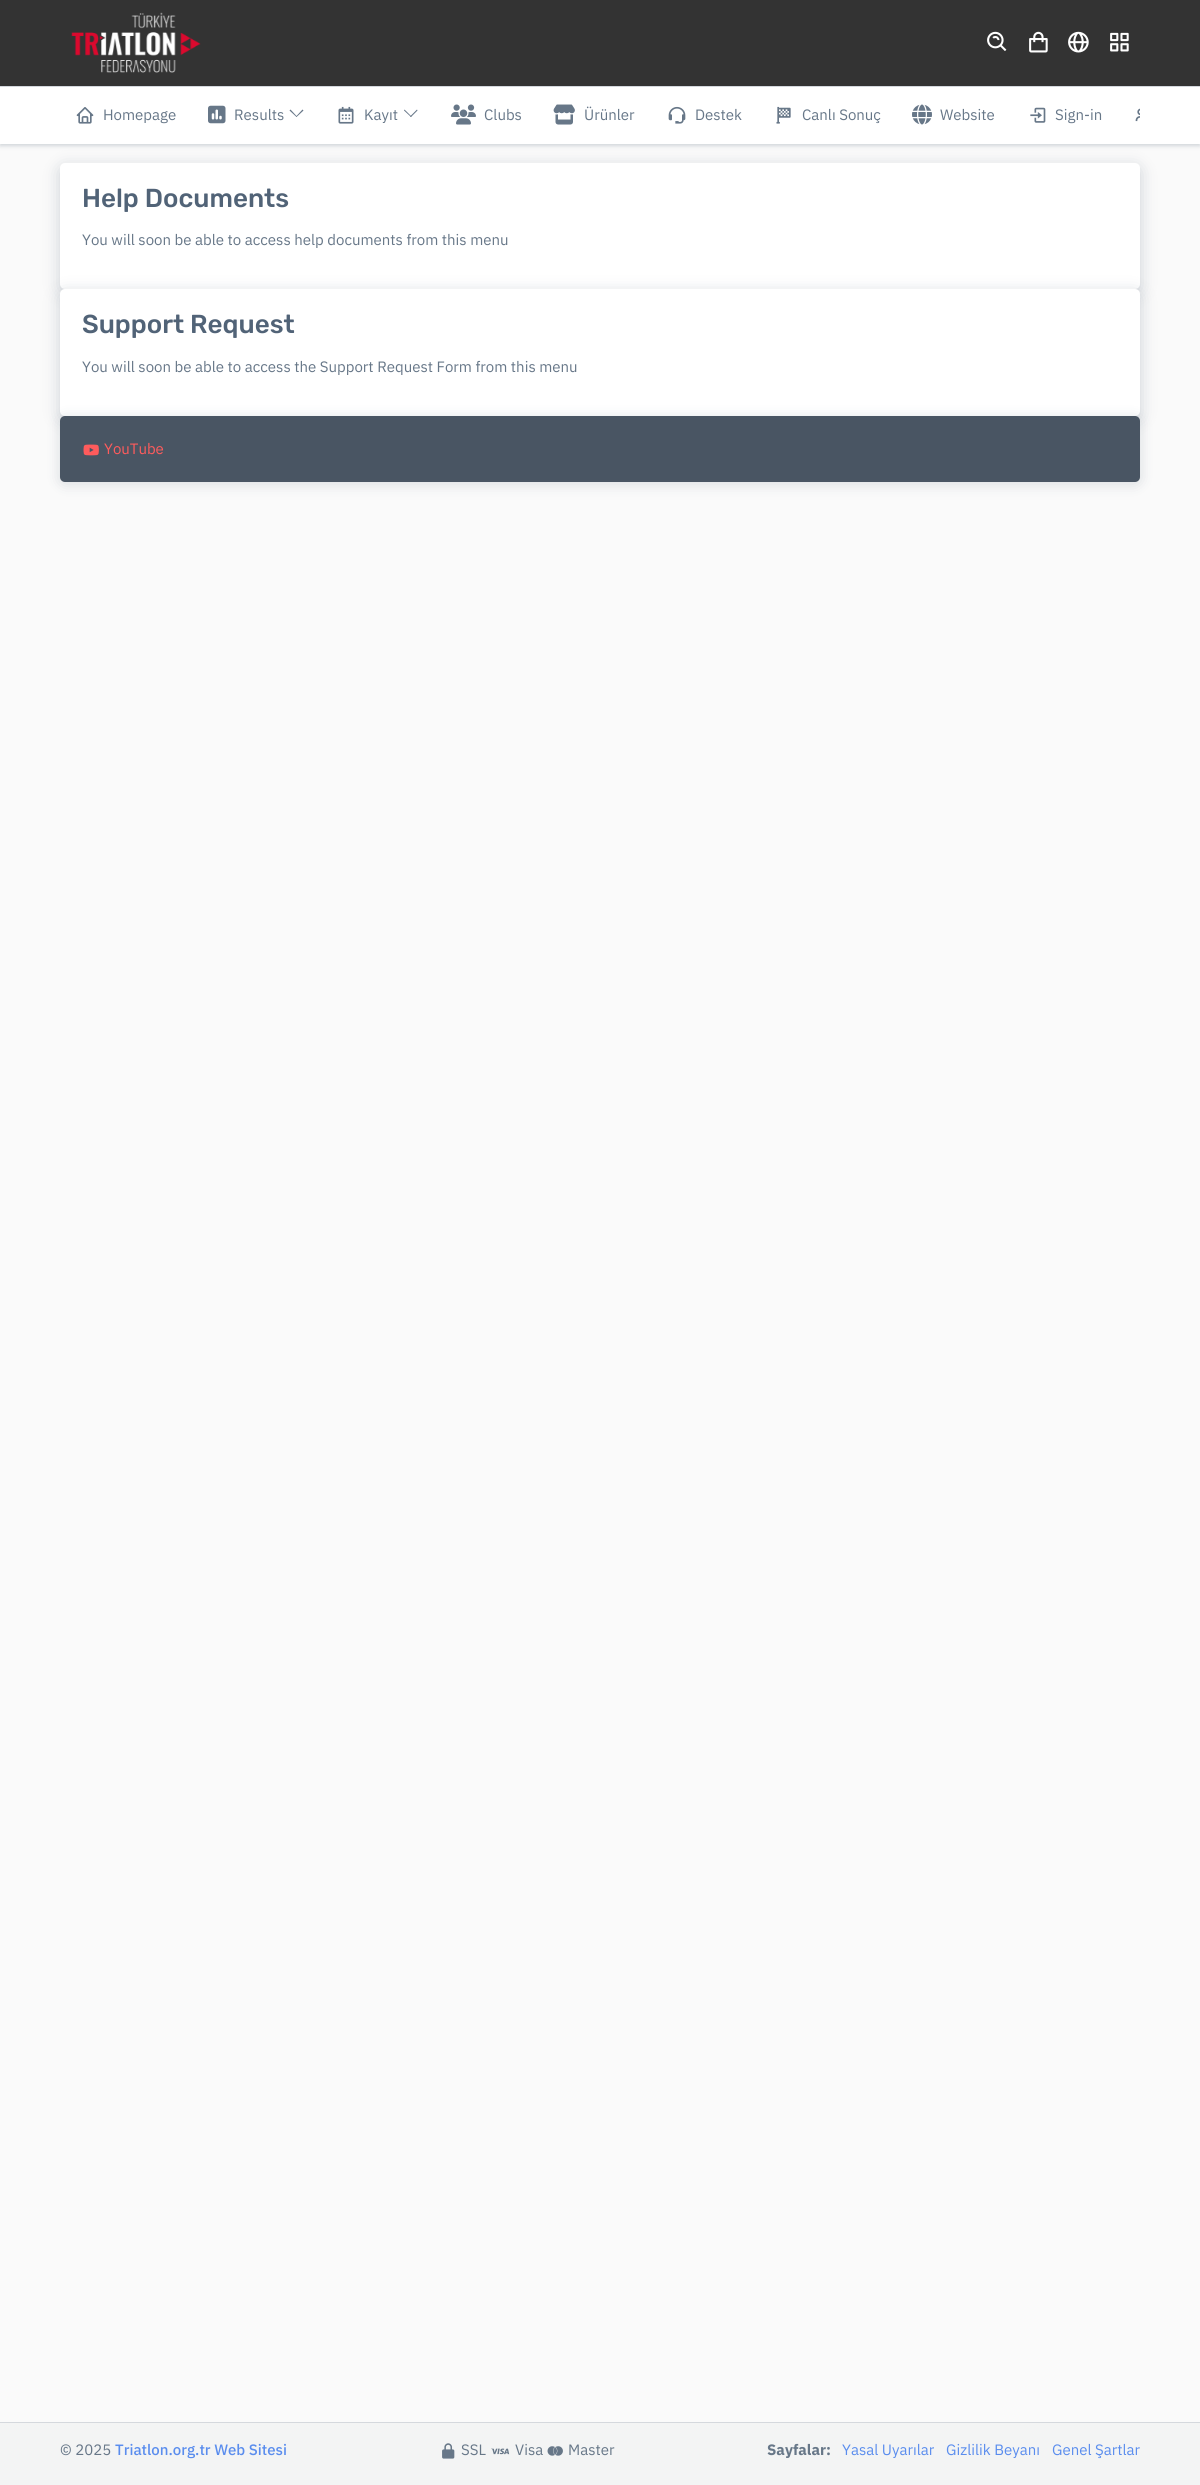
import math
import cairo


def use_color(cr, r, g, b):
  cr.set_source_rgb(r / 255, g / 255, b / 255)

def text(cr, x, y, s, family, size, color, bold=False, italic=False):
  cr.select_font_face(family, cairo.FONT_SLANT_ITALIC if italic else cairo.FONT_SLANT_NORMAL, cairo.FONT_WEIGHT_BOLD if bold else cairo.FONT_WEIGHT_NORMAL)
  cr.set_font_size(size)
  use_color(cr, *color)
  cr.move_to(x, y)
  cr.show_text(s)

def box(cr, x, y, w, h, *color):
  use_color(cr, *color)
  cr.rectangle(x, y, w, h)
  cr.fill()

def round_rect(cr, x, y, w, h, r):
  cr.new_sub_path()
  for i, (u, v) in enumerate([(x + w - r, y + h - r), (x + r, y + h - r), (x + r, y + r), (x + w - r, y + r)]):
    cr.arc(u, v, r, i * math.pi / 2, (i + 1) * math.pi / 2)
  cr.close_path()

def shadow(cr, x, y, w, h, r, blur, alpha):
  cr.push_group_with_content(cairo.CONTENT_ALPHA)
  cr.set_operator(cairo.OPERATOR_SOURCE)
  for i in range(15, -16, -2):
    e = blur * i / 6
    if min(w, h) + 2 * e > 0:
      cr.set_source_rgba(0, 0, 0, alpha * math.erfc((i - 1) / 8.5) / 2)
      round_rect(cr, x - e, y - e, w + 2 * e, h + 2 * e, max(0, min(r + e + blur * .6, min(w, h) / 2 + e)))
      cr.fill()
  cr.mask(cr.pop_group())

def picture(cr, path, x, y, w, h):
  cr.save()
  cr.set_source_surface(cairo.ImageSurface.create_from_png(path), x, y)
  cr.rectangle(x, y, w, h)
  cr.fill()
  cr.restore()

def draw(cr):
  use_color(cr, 250, 250, 250)
  cr.paint()
  use_color(cr, 147, 158, 170)
  shadow(cr, 0, 88, 1200, 58, 0, 2, 0.4)
  box(cr, 0, 86, 1200, 1, 212, 216, 221)
  box(cr, 0, 0, 1200, 86, 51, 51, 51)
  picture(cr, "img_01.png", 71, 12, 130, 61)
  picture(cr, "img_02.png", 987, 31, 20, 20)
  picture(cr, "img_03.png", 1029, 31, 19, 22)
  picture(cr, "img_04.png", 1068, 31, 21, 22)
  picture(cr, "img_05.png", 1110, 32, 19, 20)
  use_color(cr, 147, 158, 170)
  shadow(cr, 60, 167, 1080, 126, 5, 8, 0.45)
  box(cr, 0, 87, 1200, 57, 255, 255, 255)
  picture(cr, "img_06.png", 76, 107, 18, 17)
  picture(cr, "img_07.png", 208, 105, 18, 19)
  use_color(cr, 103, 119, 136)
  cr.new_path()
  cr.move_to(303.5, 110.5)
  cr.line_to(296.5, 117)
  cr.line_to(296, 116.5)
  cr.line_to(302.5, 109.5)
  cr.close_path()
  cr.fill()
  cr.new_path()
  cr.move_to(297, 116.5)
  cr.line_to(296.5, 117)
  cr.line_to(289.5, 110.5)
  cr.line_to(290.5, 109.5)
  cr.close_path()
  cr.fill()
  picture(cr, "img_08.png", 338, 106, 16, 18)
  cr.new_path()
  cr.move_to(417.5, 110.5)
  cr.line_to(411, 117)
  cr.line_to(410, 116.5)
  cr.line_to(417, 109.5)
  cr.close_path()
  cr.fill()
  cr.new_path()
  cr.move_to(411.5, 116.5)
  cr.line_to(411, 117)
  cr.line_to(404, 110.5)
  cr.line_to(404.5, 109.5)
  cr.close_path()
  cr.fill()
  picture(cr, "img_09.png", 451, 104, 25, 21)
  picture(cr, "img_10.png", 553, 104, 22, 21)
  picture(cr, "img_11.png", 668, 106, 18, 18)
  picture(cr, "img_12.png", 776, 106, 15, 18)
  picture(cr, "img_13.png", 912, 104, 20, 21)
  picture(cr, "img_14.png", 1030, 107, 16, 16)
  picture(cr, "img_15.png", 1135, 108, 5, 14)
  use_color(cr, 255, 255, 255)
  round_rect(cr, 60, 163, 1080, 126, 5)
  cr.fill()
  use_color(cr, 147, 158, 170)
  shadow(cr, 60, 293, 1080, 127, 5, 8, 0.45)
  use_color(cr, 255, 255, 255)
  round_rect(cr, 60, 289, 1080, 127, 5)
  cr.fill()
  use_color(cr, 38, 60, 85)
  shadow(cr, 60, 418, 1080, 66, 5, 7, 0.16)
  use_color(cr, 73, 85, 99)
  round_rect(cr, 60, 416, 1080, 66, 5)
  cr.fill()
  picture(cr, "img_16.png", 83, 444, 16, 12)
  box(cr, 0, 2423, 1200, 62, 243, 244, 244)
  box(cr, 0, 2422, 1200, 1, 212, 216, 221)
  picture(cr, "img_17.png", 442, 2443, 13, 16)
  picture(cr, "img_18.png", 491, 2448, 19, 7)
  picture(cr, "img_19.png", 547, 2446, 16, 10)
  text(cr, 103, 120, "Homepage", "IBM Plex Sans", 15, (103, 119, 136))
  text(cr, 234, 120, "Results", "IBM Plex Sans", 15, (103, 119, 136))
  text(cr, 364, 120, "Kayıt", "IBM Plex Sans", 15, (103, 119, 136))
  text(cr, 484, 120, "Clubs", "IBM Plex Sans", 15, (103, 119, 136))
  text(cr, 584, 120, "Ürünler", "IBM Plex Sans", 15, (103, 119, 136))
  text(cr, 695, 120, "Destek", "IBM Plex Sans", 15, (103, 119, 136))
  text(cr, 802, 120, "Canlı Sonuç", "IBM Plex Sans", 15, (103, 119, 136))
  text(cr, 940, 120, "Website", "IBM Plex Sans", 15, (103, 119, 136))
  text(cr, 1055, 120, "Sign-in", "IBM Plex Sans", 15, (103, 119, 136))
  text(cr, 82, 207, "Help Documents", "Rubik Medium", 26, (81, 99, 119))
  text(cr, 82, 245, "You will soon be able to access help documents from this menu", "IBM Plex Sans", 15, (103, 119, 136))
  text(cr, 82, 333, "Support Request", "Rubik Medium", 26, (81, 99, 119))
  text(cr, 82, 372, "You will soon be able to access the Support Request Form from this menu", "IBM Plex Sans", 15, (103, 119, 136))
  text(cr, 104, 454, "YouTube", "IBM Plex Sans", 15, (255, 91, 92))
  text(cr, 60, 2455, "© 2025", "IBM Plex Sans", 15, (103, 119, 136))
  text(cr, 115, 2455, "Triatlon.org.tr Web Sitesi", "IBM Plex Sans Medium", 15, (90, 141, 238))
  text(cr, 461, 2455, "SSL", "IBM Plex Sans", 15, (103, 119, 136))
  text(cr, 515, 2455, "Visa", "IBM Plex Sans", 15, (103, 119, 136))
  text(cr, 568, 2455, "Master", "IBM Plex Sans", 15, (103, 119, 136))
  text(cr, 767, 2455, "Sayfalar:", "IBM Plex Sans", 15, (103, 119, 136), bold=True)
  text(cr, 842, 2455, "Yasal Uyarılar", "IBM Plex Sans", 15, (90, 141, 238))
  text(cr, 946, 2455, "Gizlilik Beyanı", "IBM Plex Sans", 15, (90, 141, 238))
  text(cr, 1052, 2455, "Genel Şartlar", "IBM Plex Sans", 15, (90, 141, 238))


surface = cairo.ImageSurface(cairo.FORMAT_RGB24, 1200, 2485)
cr = cairo.Context(surface)
options = cairo.FontOptions()
options.set_hint_metrics(cairo.HINT_METRICS_OFF)
options.set_hint_style(cairo.HINT_STYLE_NONE)
cr.set_font_options(options)
cr.set_miter_limit(4)
draw(cr)
surface.write_to_png("out.png")
